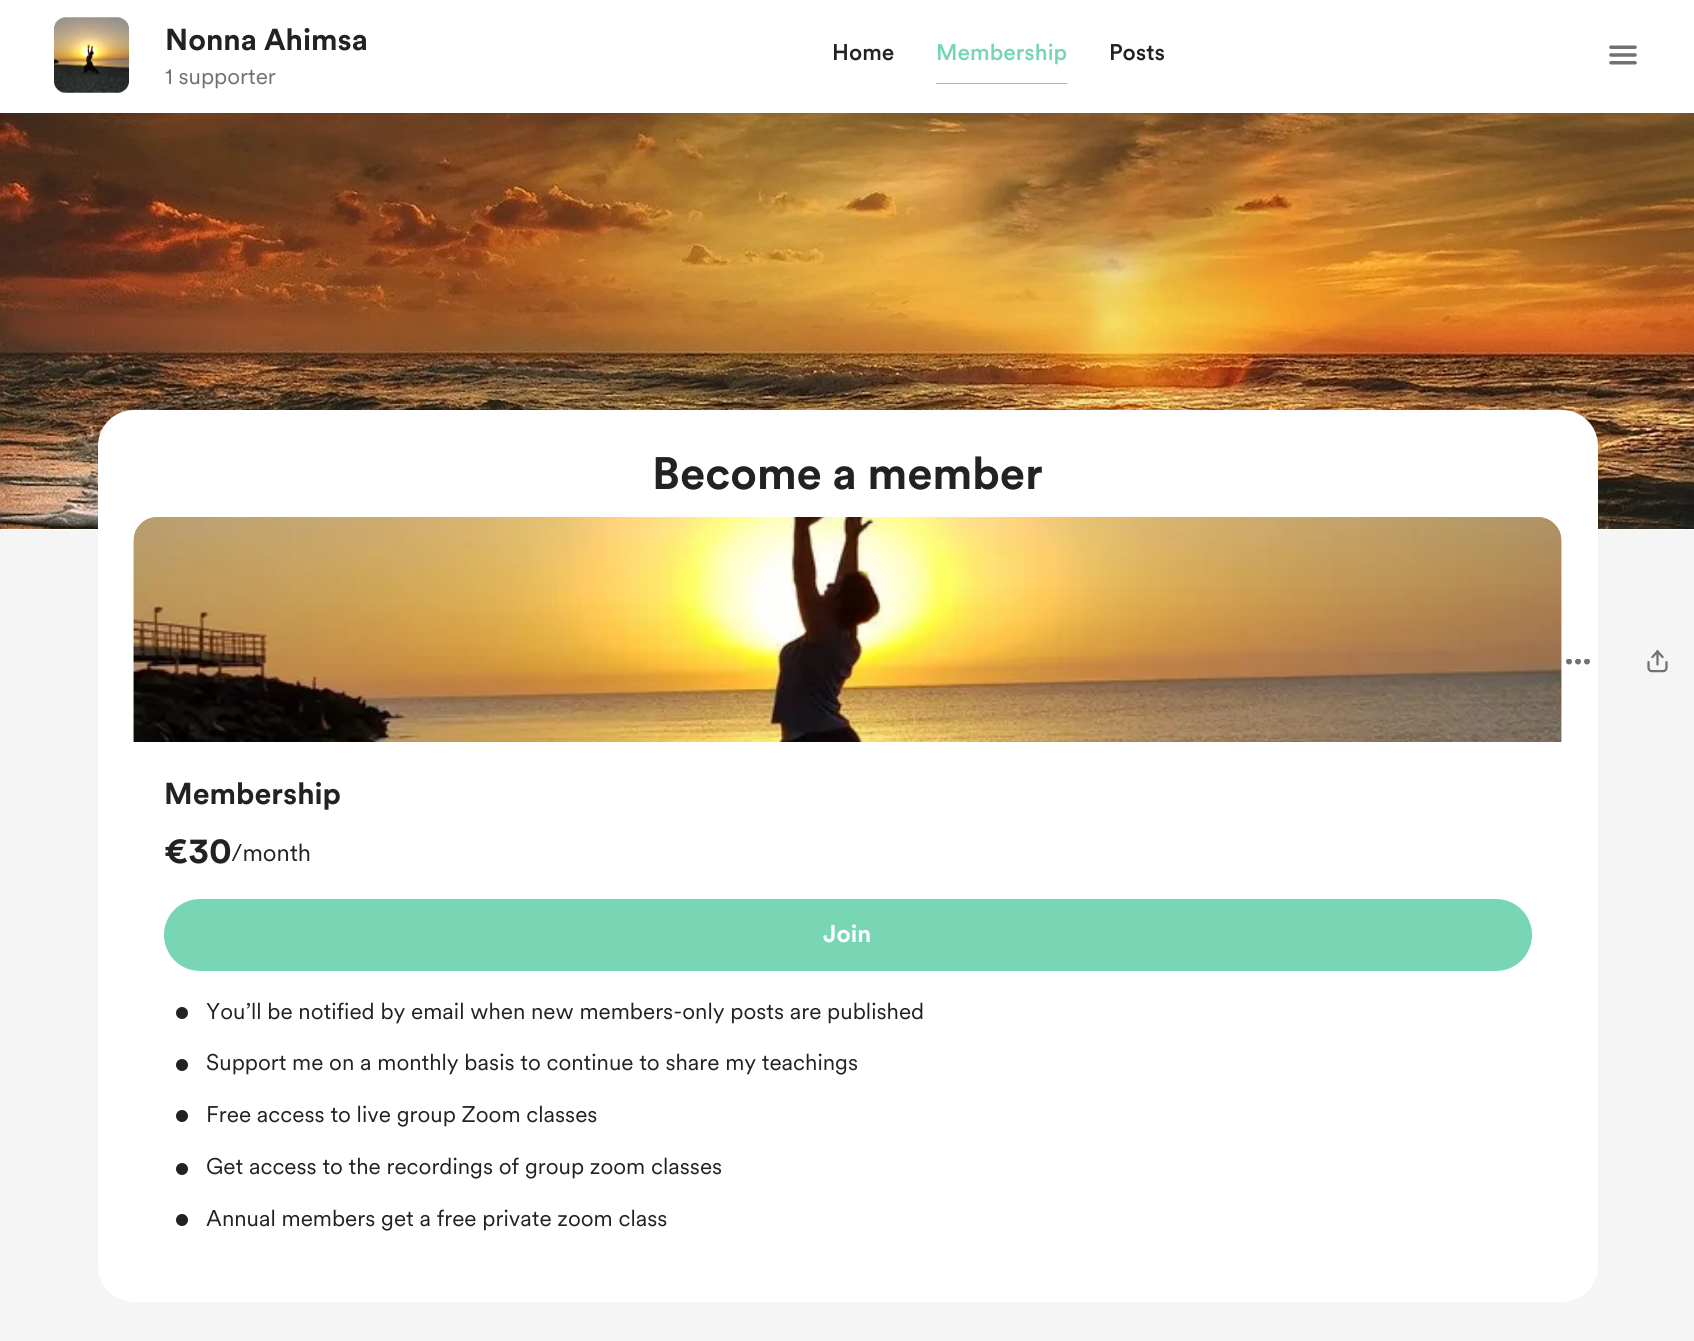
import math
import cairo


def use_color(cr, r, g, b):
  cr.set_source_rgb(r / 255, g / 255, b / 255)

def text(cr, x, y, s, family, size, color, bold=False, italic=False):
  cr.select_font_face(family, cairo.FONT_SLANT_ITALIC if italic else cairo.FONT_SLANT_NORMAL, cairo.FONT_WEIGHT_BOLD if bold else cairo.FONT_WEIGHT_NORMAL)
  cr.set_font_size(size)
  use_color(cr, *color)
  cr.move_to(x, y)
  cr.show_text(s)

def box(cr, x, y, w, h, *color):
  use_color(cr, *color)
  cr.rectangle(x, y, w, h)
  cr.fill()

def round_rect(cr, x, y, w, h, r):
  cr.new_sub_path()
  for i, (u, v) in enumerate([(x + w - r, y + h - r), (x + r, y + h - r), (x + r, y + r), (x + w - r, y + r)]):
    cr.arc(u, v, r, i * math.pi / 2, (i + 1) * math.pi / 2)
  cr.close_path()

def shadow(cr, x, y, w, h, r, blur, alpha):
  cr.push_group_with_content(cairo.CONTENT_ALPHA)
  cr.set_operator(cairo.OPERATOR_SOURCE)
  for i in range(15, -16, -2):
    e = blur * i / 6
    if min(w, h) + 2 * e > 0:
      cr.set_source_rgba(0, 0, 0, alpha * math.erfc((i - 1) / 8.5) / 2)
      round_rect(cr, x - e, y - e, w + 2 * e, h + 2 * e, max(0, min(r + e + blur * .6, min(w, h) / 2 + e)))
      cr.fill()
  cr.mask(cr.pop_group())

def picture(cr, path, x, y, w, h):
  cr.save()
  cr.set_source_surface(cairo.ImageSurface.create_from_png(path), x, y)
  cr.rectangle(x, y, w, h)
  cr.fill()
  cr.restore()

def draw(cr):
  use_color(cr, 245, 245, 245)
  cr.paint()
  picture(cr, "img_04.png", 0, 113, 1694, 416)
  use_color(cr, 0, 0, 0)
  shadow(cr, 0, 2, 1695, 112, 0, 1, 0.06)
  box(cr, 0, 0, 1694, 113, 255, 255, 255)
  picture(cr, "img_01.png", 54, 17, 75, 76)
  picture(cr, "img_02.png", 54, 17, 75, 76)
  box(cr, 936, 83, 131, 1, 121, 214, 181)
  picture(cr, "img_03.png", 1609, 45, 28, 20)
  box(cr, 0, 529, 1694, 1, 255, 255, 255)
  round_rect(cr, 98, 410, 1500, 892, 36)
  cr.fill()
  picture(cr, "img_05.png", 133, 517, 1429, 225)
  picture(cr, "img_06.png", 133, 517, 1429, 225)
  use_color(cr, 121, 214, 181)
  round_rect(cr, 164, 899, 1368, 72, 36)
  cr.fill()
  use_color(cr, 34, 34, 34)
  cr.arc(182, 1013, 6, 0, 2 * math.pi)
  cr.fill()
  cr.arc(182, 1065, 6, 0, 2 * math.pi)
  cr.fill()
  cr.arc(182, 1116, 6, 0, 2 * math.pi)
  cr.fill()
  cr.arc(182, 1169, 6, 0, 2 * math.pi)
  cr.fill()
  cr.arc(182, 1220, 6, 0, 2 * math.pi)
  cr.fill()
  picture(cr, "img_07.png", 1566, 659, 24, 6)
  picture(cr, "img_08.png", 1647, 650, 21, 23)
  text(cr, 165, 50, "Nonna Ahimsa", "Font", 30, (34, 34, 34), bold=True)
  text(cr, 165, 84, "1 supporter", "Font", 22.5, (113, 113, 113))
  text(cr, 832, 60, "Home", "Font Medium", 22.5, (34, 34, 34))
  text(cr, 936, 60, "Membership", "Font Medium", 22.5, (121, 214, 181))
  text(cr, 1109, 60, "Posts", "Font Medium", 22.5, (34, 34, 34))
  text(cr, 652, 489, "Become a member", "Font", 45, (34, 34, 34), bold=True)
  text(cr, 164, 804, "Membership", "Font", 30, (34, 34, 34), bold=True)
  text(cr, 164, 863, "€30", "Font", 36, (34, 34, 34), bold=True)
  text(cr, 231, 861, "/month", "Font", 24, (34, 34, 34))
  text(cr, 823, 942, "Join", "Font", 24, (255, 255, 255), bold=True)
  text(cr, 206, 1019, "You’ll be notified by email when new members-only posts are published", "Font", 22.5, (34, 34, 34))
  text(cr, 206, 1070, "Support me on a monthly basis to continue to share my teachings", "Font", 22.5, (34, 34, 34))
  text(cr, 206, 1122, "Free access to live group Zoom classes", "Font", 22.5, (34, 34, 34))
  text(cr, 206, 1174, "Get access to the recordings of group zoom classes", "Font", 22.5, (34, 34, 34))
  text(cr, 206, 1226, "Annual members get a free private zoom class", "Font", 22.5, (34, 34, 34))


surface = cairo.ImageSurface(cairo.FORMAT_RGB24, 1694, 1341)
cr = cairo.Context(surface)
options = cairo.FontOptions()
options.set_hint_metrics(cairo.HINT_METRICS_OFF)
options.set_hint_style(cairo.HINT_STYLE_NONE)
cr.set_font_options(options)
cr.set_miter_limit(4)
draw(cr)
surface.write_to_png("out.png")
